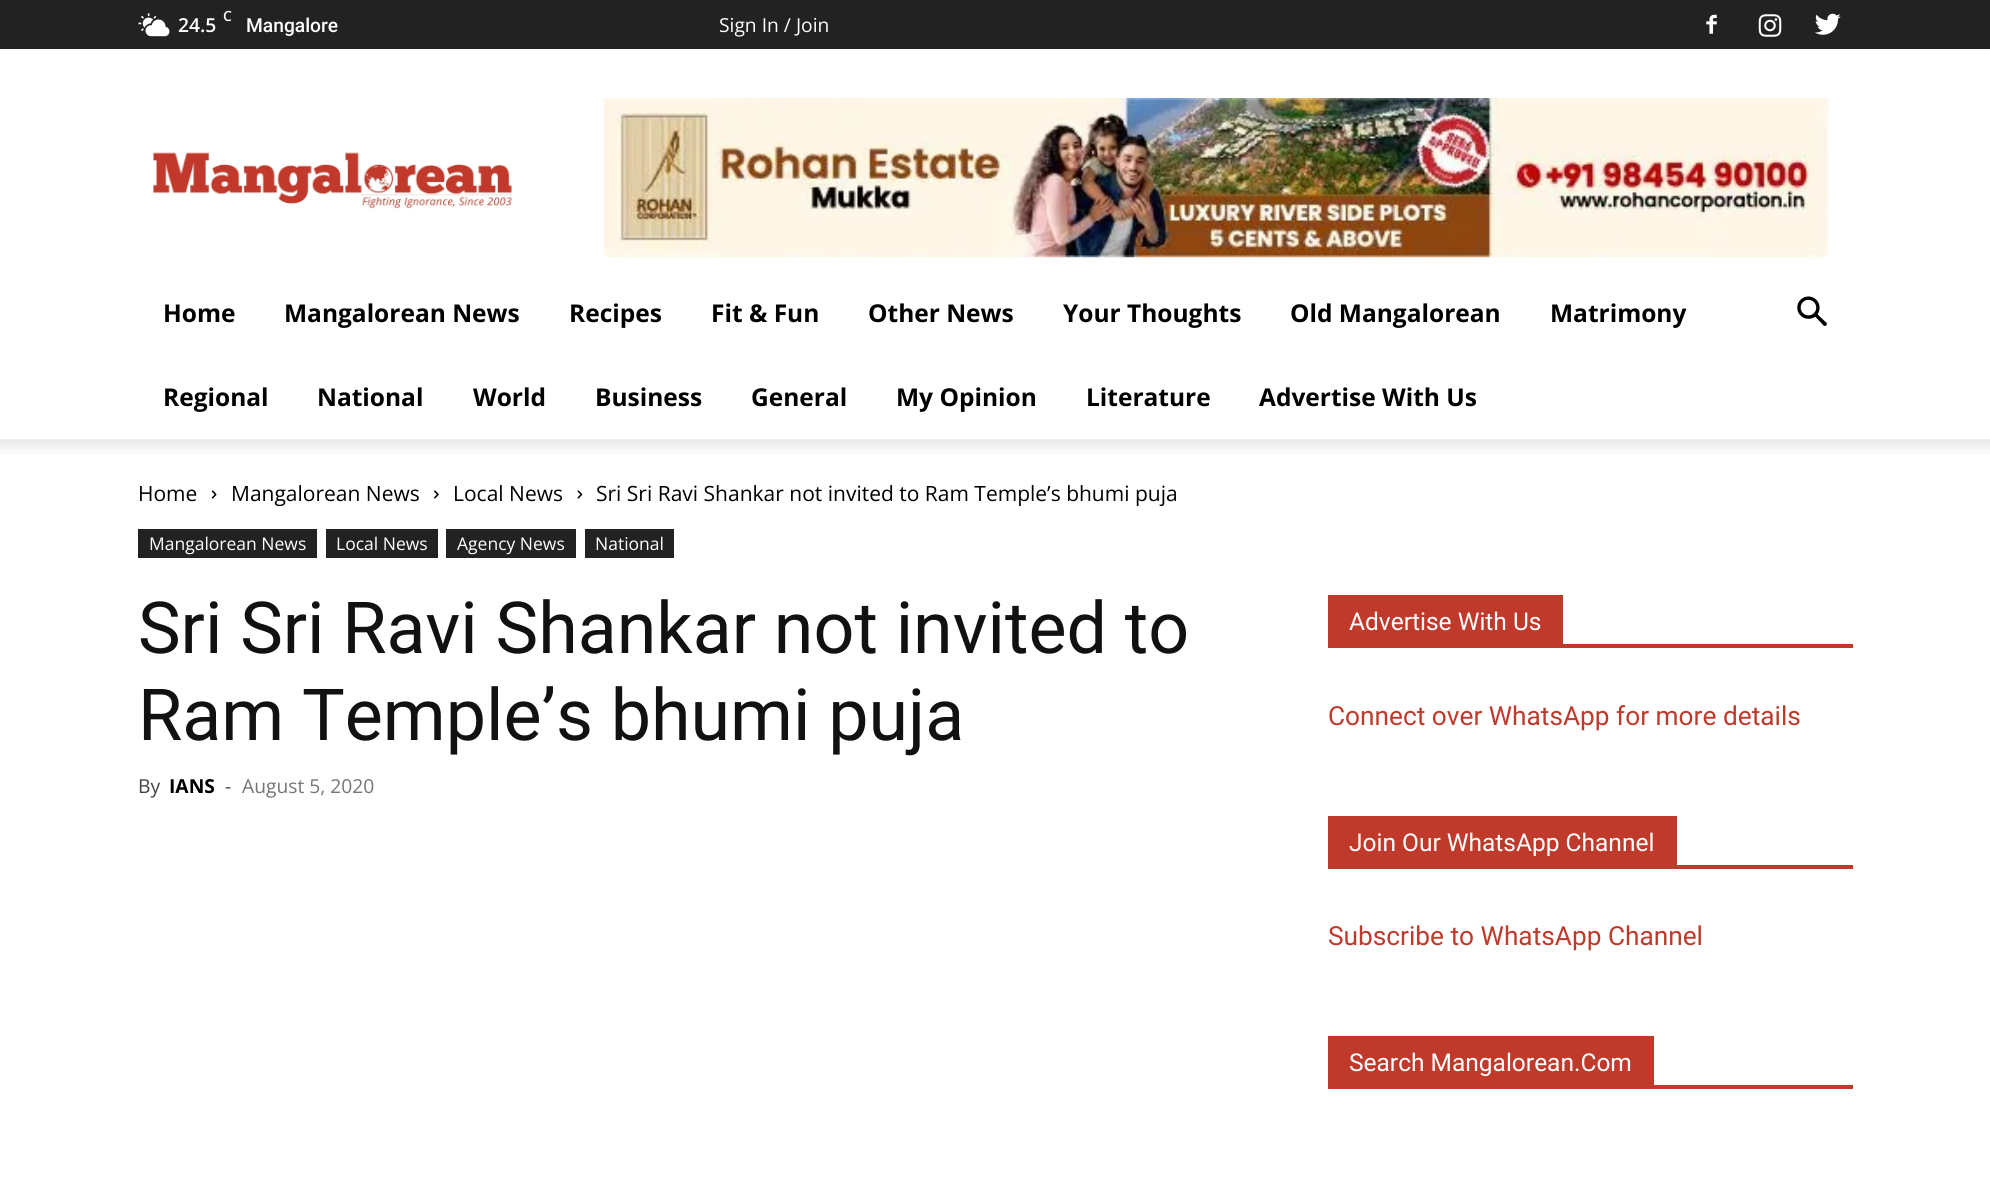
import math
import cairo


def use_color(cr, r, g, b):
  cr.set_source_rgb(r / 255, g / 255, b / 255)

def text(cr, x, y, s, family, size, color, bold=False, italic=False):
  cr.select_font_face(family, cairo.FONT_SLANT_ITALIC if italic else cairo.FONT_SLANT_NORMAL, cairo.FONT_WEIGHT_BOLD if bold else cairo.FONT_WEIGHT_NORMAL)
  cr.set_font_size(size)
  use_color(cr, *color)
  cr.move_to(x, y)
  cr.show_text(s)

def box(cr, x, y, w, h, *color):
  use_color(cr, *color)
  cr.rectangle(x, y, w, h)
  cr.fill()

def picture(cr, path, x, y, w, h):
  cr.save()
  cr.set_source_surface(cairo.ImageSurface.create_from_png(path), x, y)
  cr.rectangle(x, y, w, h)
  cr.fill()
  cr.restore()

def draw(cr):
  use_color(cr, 255, 255, 255)
  cr.paint()
  box(cr, 0, 0, 1990, 49, 34, 34, 34)
  picture(cr, "img_01.png", 138, 13, 32, 24)
  picture(cr, "img_02.png", 1706, 14, 11, 20)
  picture(cr, "img_03.png", 1758, 14, 24, 23)
  picture(cr, "img_04.png", 1815, 13, 26, 22)
  picture(cr, "img_05.png", 153, 152, 359, 58)
  picture(cr, "img_06.png", 603, 98, 1226, 160)
  picture(cr, "img_07.png", 1797, 296, 30, 30)
  picture(cr, "img_08.png", 0, 439, 1990, 15)
  picture(cr, "img_09.png", 211, 490, 6, 9)
  picture(cr, "img_10.png", 434, 490, 5, 9)
  picture(cr, "img_11.png", 577, 490, 6, 9)
  box(cr, 138, 529, 179, 29, 34, 34, 34)
  box(cr, 326, 529, 112, 29, 34, 34, 34)
  box(cr, 446, 529, 130, 29, 34, 34, 34)
  box(cr, 585, 529, 89, 29, 34, 34, 34)
  box(cr, 1328, 644, 525, 4, 192, 58, 43)
  box(cr, 1328, 595, 235, 49, 192, 58, 43)
  box(cr, 1328, 865, 525, 4, 192, 58, 43)
  box(cr, 1328, 816, 349, 49, 192, 58, 43)
  box(cr, 1328, 1085, 525, 4, 192, 58, 43)
  box(cr, 1328, 1036, 326, 49, 192, 58, 43)
  text(cr, 223, 21, "C", "Open Sans SemiBold", 14, (255, 255, 255))
  text(cr, 178, 32, "24.5", "Open Sans SemiBold", 19.25, (255, 255, 255))
  text(cr, 246, 32, "Mangalore", "Roboto Medium", 19.25, (255, 255, 255))
  text(cr, 719, 32, "Sign In / Join", "Open Sans", 19.25, (255, 255, 255))
  text(cr, 163, 322, "Home", "Open Sans", 24.5, (0, 0, 0), bold=True)
  text(cr, 284, 322, "Mangalorean News", "Open Sans", 24.5, (0, 0, 0), bold=True)
  text(cr, 569, 322, "Recipes", "Open Sans", 24.5, (0, 0, 0), bold=True)
  text(cr, 711, 322, "Fit & Fun", "Open Sans", 24.5, (0, 0, 0), bold=True)
  text(cr, 868, 322, "Other News", "Open Sans", 24.5, (0, 0, 0), bold=True)
  text(cr, 1063, 322, "Your Thoughts", "Open Sans", 24.5, (0, 0, 0), bold=True)
  text(cr, 1290, 322, "Old Mangalorean", "Open Sans", 24.5, (0, 0, 0), bold=True)
  text(cr, 1550, 322, "Matrimony", "Open Sans", 24.5, (0, 0, 0), bold=True)
  text(cr, 163, 406, "Regional", "Open Sans", 24.5, (0, 0, 0), bold=True)
  text(cr, 317, 406, "National", "Open Sans", 24.5, (0, 0, 0), bold=True)
  text(cr, 473, 406, "World", "Open Sans", 24.5, (0, 0, 0), bold=True)
  text(cr, 595, 406, "Business", "Open Sans", 24.5, (0, 0, 0), bold=True)
  text(cr, 751, 406, "General", "Open Sans", 24.5, (0, 0, 0), bold=True)
  text(cr, 896, 406, "My Opinion", "Open Sans", 24.5, (0, 0, 0), bold=True)
  text(cr, 1086, 406, "Literature", "Open Sans", 24.5, (0, 0, 0), bold=True)
  text(cr, 1259, 406, "Advertise With Us", "Open Sans", 24.5, (0, 0, 0), bold=True)
  text(cr, 138, 501, "Home", "Open Sans", 21, (0, 0, 0))
  text(cr, 231, 501, "Mangalorean News", "Open Sans", 21, (0, 0, 0))
  text(cr, 453, 501, "Local News", "Open Sans", 21, (0, 0, 0))
  text(cr, 596, 501, "Sri Sri Ravi Shankar not invited to Ram Temple’s bhumi puja", "Open Sans", 21, (0, 0, 0))
  text(cr, 149, 550, "Mangalorean News", "Open Sans", 17.5, (255, 255, 255))
  text(cr, 336, 550, "Local News", "Open Sans", 17.5, (255, 255, 255))
  text(cr, 457, 550, "Agency News", "Open Sans", 17.5, (255, 255, 255))
  text(cr, 595, 550, "National", "Open Sans", 17.5, (255, 255, 255))
  text(cr, 138, 653, "Sri Sri Ravi Shankar not invited to", "Roboto", 71.75, (17, 17, 17))
  text(cr, 138, 740, "Ram Temple’s bhumi puja", "Roboto", 71.75, (17, 17, 17))
  text(cr, 138, 793, "By", "Open Sans", 19.25, (68, 68, 68))
  text(cr, 169, 793, "IANS", "Open Sans", 19.25, (0, 0, 0), bold=True)
  text(cr, 225, 793, "-", "Open Sans", 19.25, (68, 68, 68))
  text(cr, 242, 793, "August 5, 2020", "Open Sans", 19.25, (118, 118, 118))
  text(cr, 1349, 630, "Advertise With Us", "Roboto", 24.5, (255, 255, 255))
  text(cr, 1328, 725, "Connect over WhatsApp for more details", "Roboto", 26.25, (192, 58, 43))
  text(cr, 1349, 851, "Join Our WhatsApp Channel", "Roboto", 24.5, (255, 255, 255))
  text(cr, 1328, 945, "Subscribe to WhatsApp Channel", "Roboto", 26.25, (192, 58, 43))
  text(cr, 1349, 1071, "Search Mangalorean.Com", "Roboto", 24.5, (255, 255, 255))


surface = cairo.ImageSurface(cairo.FORMAT_RGB24, 1990, 1192)
cr = cairo.Context(surface)
options = cairo.FontOptions()
options.set_hint_metrics(cairo.HINT_METRICS_OFF)
options.set_hint_style(cairo.HINT_STYLE_NONE)
cr.set_font_options(options)
cr.set_miter_limit(4)
draw(cr)
surface.write_to_png("out.png")
